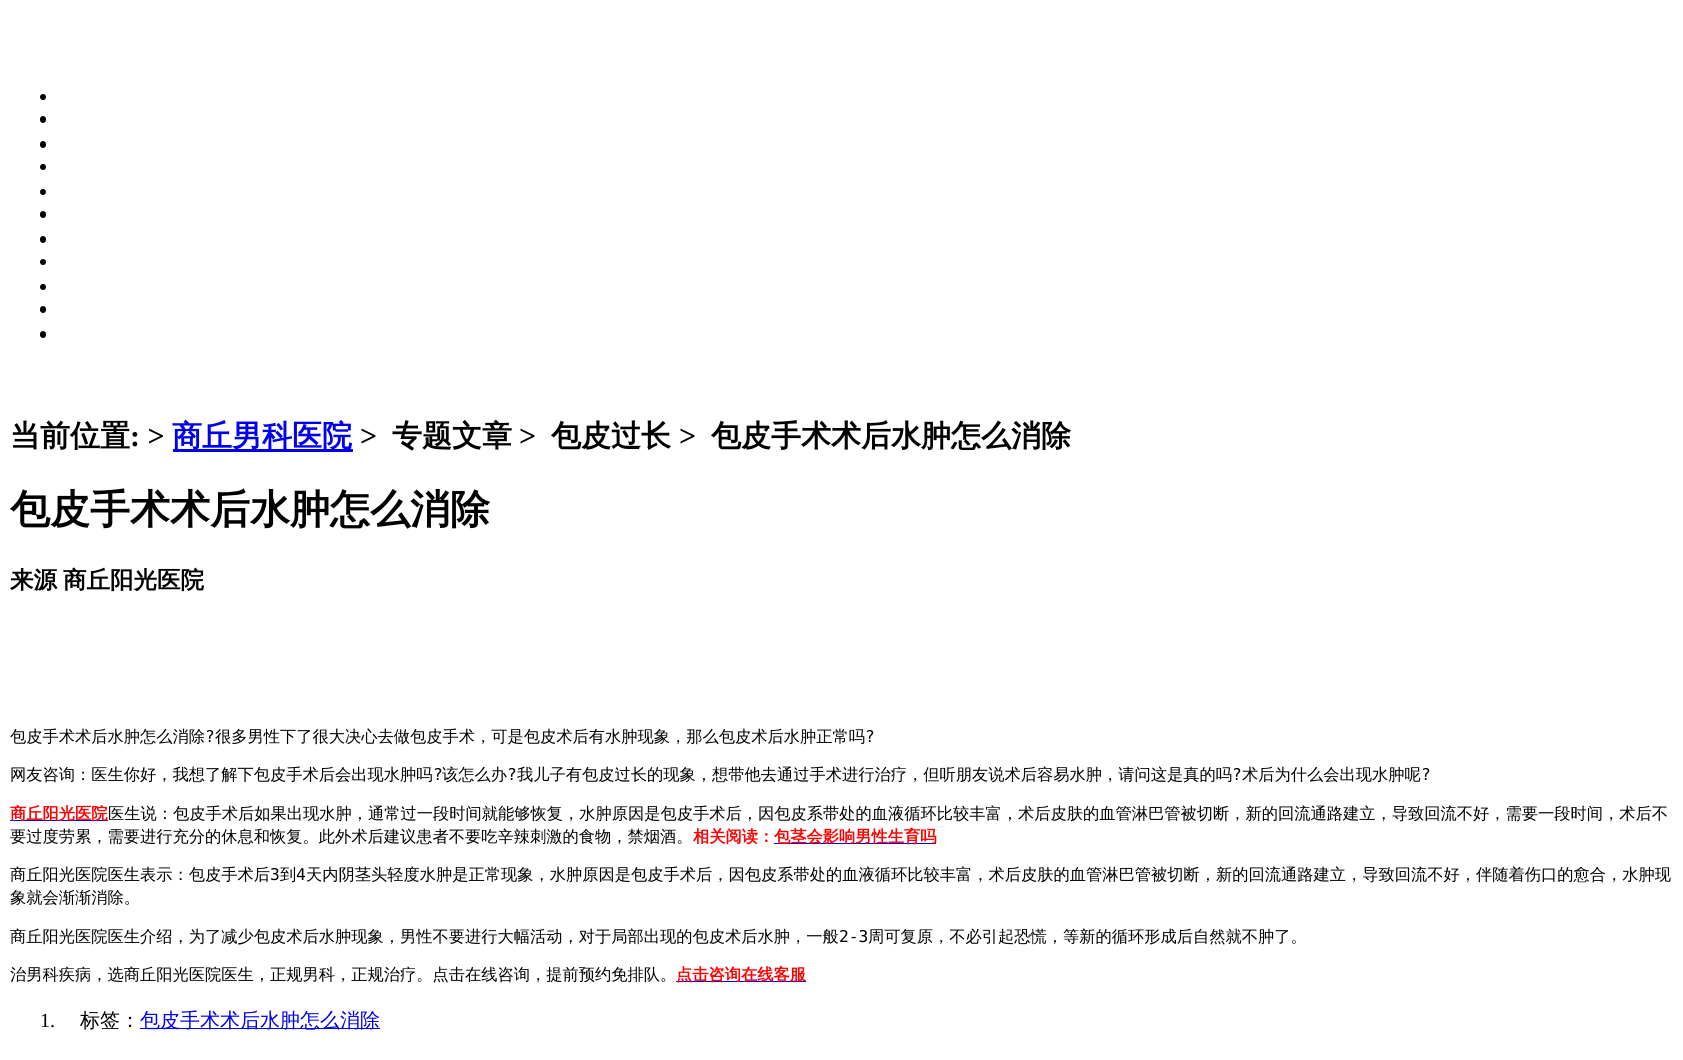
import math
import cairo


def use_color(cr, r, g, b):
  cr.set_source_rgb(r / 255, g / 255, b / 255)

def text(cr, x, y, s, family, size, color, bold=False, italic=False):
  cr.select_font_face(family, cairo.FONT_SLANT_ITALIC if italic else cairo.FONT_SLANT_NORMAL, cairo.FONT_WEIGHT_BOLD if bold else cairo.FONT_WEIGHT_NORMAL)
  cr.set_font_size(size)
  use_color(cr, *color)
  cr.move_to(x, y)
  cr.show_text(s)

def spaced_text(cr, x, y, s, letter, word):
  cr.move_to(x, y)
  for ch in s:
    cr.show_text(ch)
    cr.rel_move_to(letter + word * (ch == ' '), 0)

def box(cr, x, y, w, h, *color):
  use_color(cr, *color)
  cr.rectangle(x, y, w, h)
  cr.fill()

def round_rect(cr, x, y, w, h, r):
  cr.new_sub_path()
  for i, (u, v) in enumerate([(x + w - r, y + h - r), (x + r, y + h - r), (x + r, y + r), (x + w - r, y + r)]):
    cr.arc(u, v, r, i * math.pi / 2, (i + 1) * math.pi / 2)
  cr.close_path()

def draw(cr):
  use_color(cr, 255, 255, 255)
  cr.paint()
  use_color(cr, 0, 0, 0)
  cr.arc(43, 97, 3, 0, 2 * math.pi)
  cr.fill()
  round_rect(cr, 40, 116, 6, 7, 3)
  cr.fill()
  round_rect(cr, 40, 141, 6, 7, 3)
  cr.fill()
  cr.arc(43, 167, 3, 0, 2 * math.pi)
  cr.fill()
  cr.arc(43, 192, 3, 0, 2 * math.pi)
  cr.fill()
  round_rect(cr, 40, 211, 6, 7, 3)
  cr.fill()
  round_rect(cr, 40, 236, 6, 7, 3)
  cr.fill()
  cr.arc(43, 262, 3, 0, 2 * math.pi)
  cr.fill()
  cr.arc(43, 287, 3, 0, 2 * math.pi)
  cr.fill()
  round_rect(cr, 40, 306, 6, 7, 3)
  cr.fill()
  round_rect(cr, 40, 331, 6, 7, 3)
  cr.fill()
  box(cr, 173, 449, 180, 3, 0, 0, 238)
  box(cr, 10, 820, 98, 1, 0, 0, 238)
  box(cr, 774, 843, 162, 1, 0, 0, 238)
  box(cr, 676, 981, 130, 1, 0, 0, 238)
  box(cr, 140, 1028, 240, 1, 0, 0, 238)
  text(cr, 10, 446, "当前位置", "WenQuanYi Zen Hei", 30, (0, 0, 0), bold=True)
  text(cr, 130, 446, ": >", "Liberation Serif", 30, (0, 0, 0), bold=True)
  text(cr, 172, 446, "商丘男科医院", "WenQuanYi Zen Hei", 30, (0, 0, 238), bold=True)
  text(cr, 360, 446, ">", "Liberation Serif", 30, (0, 0, 0), bold=True)
  text(cr, 392, 446, "专题文章", "WenQuanYi Zen Hei", 30, (0, 0, 0), bold=True)
  text(cr, 519, 446, ">", "Liberation Serif", 30, (0, 0, 0), bold=True)
  text(cr, 551, 446, "包皮过长", "WenQuanYi Zen Hei", 30, (0, 0, 0), bold=True)
  text(cr, 679, 446, ">", "Liberation Serif", 30, (0, 0, 0), bold=True)
  text(cr, 711, 446, "包皮手术术后水肿怎么消除", "WenQuanYi Zen Hei", 30, (0, 0, 0), bold=True)
  text(cr, 10, 523, "包皮手术术后水肿怎么消除", "WenQuanYi Zen Hei", 40, (0, 0, 0), bold=True)
  cr.set_font_size(23.5)
  spaced_text(cr, 10, 588, "来源 商丘阳光医院", 0, -1)
  text(cr, 10, 742, "包皮手术术后水肿怎么消除", "WenQuanYi Zen Hei Medium", 16.25, (0, 0, 0))
  text(cr, 205, 742, "?", "DejaVu Sans Mono", 16.25, (0, 0, 0))
  text(cr, 215, 742, "很多男性下了很大决心去做包皮手术，可是包皮术后有水肿现象，那么包皮术后水肿正常吗", "WenQuanYi Zen Hei Medium", 16.25, (0, 0, 0))
  text(cr, 865, 742, "?", "DejaVu Sans Mono", 16.25, (0, 0, 0))
  text(cr, 10, 780, "网友咨询：医生你好，我想了解下包皮手术后会出现水肿吗", "WenQuanYi Zen Hei Medium", 16.25, (0, 0, 0))
  text(cr, 433, 780, "?", "DejaVu Sans Mono", 16.25, (0, 0, 0))
  text(cr, 442, 780, "该怎么办", "WenQuanYi Zen Hei Medium", 16.25, (0, 0, 0))
  text(cr, 507, 780, "?", "DejaVu Sans Mono", 16.25, (0, 0, 0))
  text(cr, 517, 780, "我儿子有包皮过长的现象，想带他去通过手术进行治疗，但听朋友说术后容易水肿，请问这是真的吗", "WenQuanYi Zen Hei Medium", 16.25, (0, 0, 0))
  text(cr, 1232, 780, "?", "DejaVu Sans Mono", 16.25, (0, 0, 0))
  text(cr, 1242, 780, "术后为什么会出现水肿呢", "WenQuanYi Zen Hei Medium", 16.25, (0, 0, 0))
  text(cr, 1421, 780, "?", "DejaVu Sans Mono", 16.25, (0, 0, 0))
  text(cr, 10, 819, "商丘阳光医院", "WenQuanYi Zen Hei", 16.25, (255, 0, 0), bold=True)
  text(cr, 108, 819, "医生说：包皮手术后如果出现水肿，通常过一段时间就能够恢复，水肿原因是包皮手术后，因包皮系带处的血液循环比较丰富，术后皮肤的血管淋巴管被切断，新的回流通路建立，导致回流不好，需要一段时间，术后不", "WenQuanYi Zen Hei Medium", 16.25, (0, 0, 0))
  text(cr, 10, 842, "要过度劳累，需要进行充分的休息和恢复。此外术后建议患者不要吃辛辣刺激的食物，禁烟酒。", "WenQuanYi Zen Hei Medium", 16.25, (0, 0, 0))
  text(cr, 693, 842, "相关阅读：", "WenQuanYi Zen Hei", 16.25, (255, 0, 0), bold=True)
  text(cr, 774, 842, "包茎会影响男性生育吗", "WenQuanYi Zen Hei", 16.25, (255, 0, 0), bold=True)
  text(cr, 10, 880, "商丘阳光医院医生表示：包皮手术后", "WenQuanYi Zen Hei Medium", 16.25, (0, 0, 0))
  text(cr, 270, 880, "3", "DejaVu Sans Mono", 16.25, (0, 0, 0))
  text(cr, 280, 880, "到", "WenQuanYi Zen Hei Medium", 16.25, (0, 0, 0))
  text(cr, 296, 880, "4", "DejaVu Sans Mono", 16.25, (0, 0, 0))
  text(cr, 306, 880, "天内阴茎头轻度水肿是正常现象，水肿原因是包皮手术后，因包皮系带处的血液循环比较丰富，术后皮肤的血管淋巴管被切断，新的回流通路建立，导致回流不好，伴随着伤口的愈合，水肿现", "WenQuanYi Zen Hei Medium", 16.25, (0, 0, 0))
  text(cr, 10, 903, "象就会渐渐消除。", "WenQuanYi Zen Hei Medium", 16.25, (0, 0, 0))
  text(cr, 10, 942, "商丘阳光医院医生介绍，为了减少包皮术后水肿现象，男性不要进行大幅活动，对于局部出现的包皮术后水肿，一般", "WenQuanYi Zen Hei Medium", 16.25, (0, 0, 0))
  text(cr, 839, 942, "2-3", "DejaVu Sans Mono", 16.25, (0, 0, 0))
  text(cr, 868, 942, "周可复原，不必引起恐慌，等新的循环形成后自然就不肿了。", "WenQuanYi Zen Hei Medium", 16.25, (0, 0, 0))
  text(cr, 10, 980, "治男科疾病，选商丘阳光医院医生，正规男科，正规治疗。点击在线咨询，提前预约免排队。", "WenQuanYi Zen Hei Medium", 16.25, (0, 0, 0))
  text(cr, 676, 980, "点击咨询在线客服", "WenQuanYi Zen Hei", 16.25, (255, 0, 0), bold=True)
  text(cr, 40, 1027, "1.", "Liberation Serif", 20, (0, 0, 0))
  text(cr, 80, 1027, "标签：", "WenQuanYi Zen Hei Medium", 20, (0, 0, 0))
  text(cr, 140, 1027, "包皮手术术后水肿怎么消除", "WenQuanYi Zen Hei Medium", 20, (0, 0, 238))


surface = cairo.ImageSurface(cairo.FORMAT_RGB24, 1683, 1060)
cr = cairo.Context(surface)
options = cairo.FontOptions()
options.set_hint_metrics(cairo.HINT_METRICS_OFF)
options.set_hint_style(cairo.HINT_STYLE_NONE)
cr.set_font_options(options)
cr.set_miter_limit(4)
draw(cr)
surface.write_to_png("out.png")
